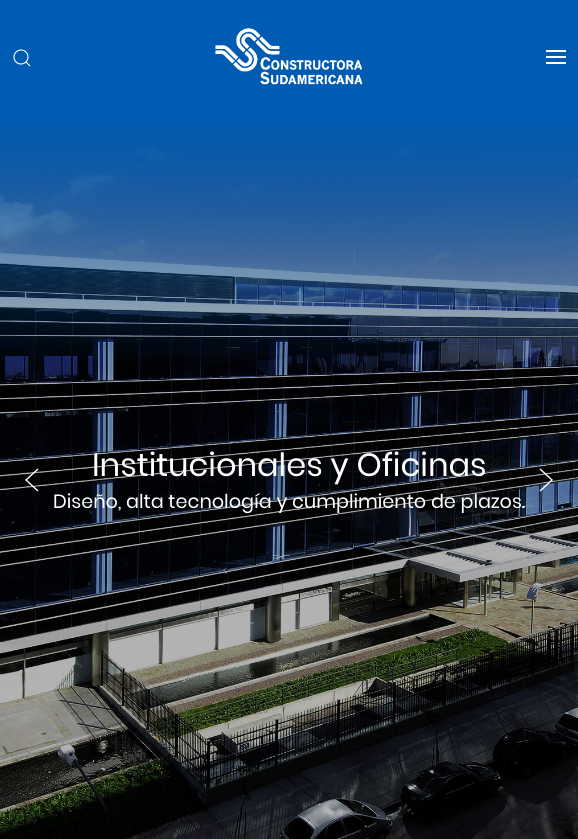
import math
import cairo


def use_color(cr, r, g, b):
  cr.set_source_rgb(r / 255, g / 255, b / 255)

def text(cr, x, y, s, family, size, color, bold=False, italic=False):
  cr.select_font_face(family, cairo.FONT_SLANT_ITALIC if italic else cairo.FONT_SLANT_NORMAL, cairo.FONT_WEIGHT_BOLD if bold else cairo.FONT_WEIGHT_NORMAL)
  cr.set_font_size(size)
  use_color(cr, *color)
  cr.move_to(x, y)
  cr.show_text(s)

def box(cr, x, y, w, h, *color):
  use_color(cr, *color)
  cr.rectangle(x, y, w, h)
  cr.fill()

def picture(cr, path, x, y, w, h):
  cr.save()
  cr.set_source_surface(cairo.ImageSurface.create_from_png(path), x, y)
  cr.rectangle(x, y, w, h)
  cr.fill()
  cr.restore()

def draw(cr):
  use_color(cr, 255, 255, 255)
  cr.paint()
  box(cr, 0, 0, 578, 115, 0, 91, 178)
  cr.arc(21, 57, 7, 0, 2 * math.pi)
  use_color(cr, 255, 255, 255)
  cr.set_line_width(1.1)
  cr.stroke()
  cr.new_path()
  cr.move_to(26, 62)
  cr.line_to(30, 66)
  cr.close_path()
  cr.stroke()
  picture(cr, "img_01.png", 215, 28, 148, 57)
  box(cr, 546, 56, 20, 2, 255, 255, 255)
  box(cr, 546, 50, 20, 2, 255, 255, 255)
  box(cr, 546, 62, 20, 2, 255, 255, 255)
  picture(cr, "img_02.png", 0, 115, 578, 724)
  cr.new_path()
  cr.move_to(38, 469)
  cr.line_to(26, 480)
  cr.line_to(38, 491)
  cr.set_line_width(1.4)
  cr.stroke()
  cr.new_path()
  cr.move_to(540, 491)
  cr.line_to(552, 480)
  cr.line_to(540, 469)
  cr.stroke()
  text(cr, 92, 476, "Institucionales y Oficinas", "Poppins", 32, (255, 255, 255))
  text(cr, 53, 508, "Diseño, alta tecnología y cumplimiento de plazos.", "Poppins", 19.2, (255, 255, 255))


surface = cairo.ImageSurface(cairo.FORMAT_RGB24, 578, 839)
cr = cairo.Context(surface)
options = cairo.FontOptions()
options.set_hint_metrics(cairo.HINT_METRICS_OFF)
options.set_hint_style(cairo.HINT_STYLE_NONE)
cr.set_font_options(options)
cr.set_miter_limit(4)
draw(cr)
surface.write_to_png("out.png")
